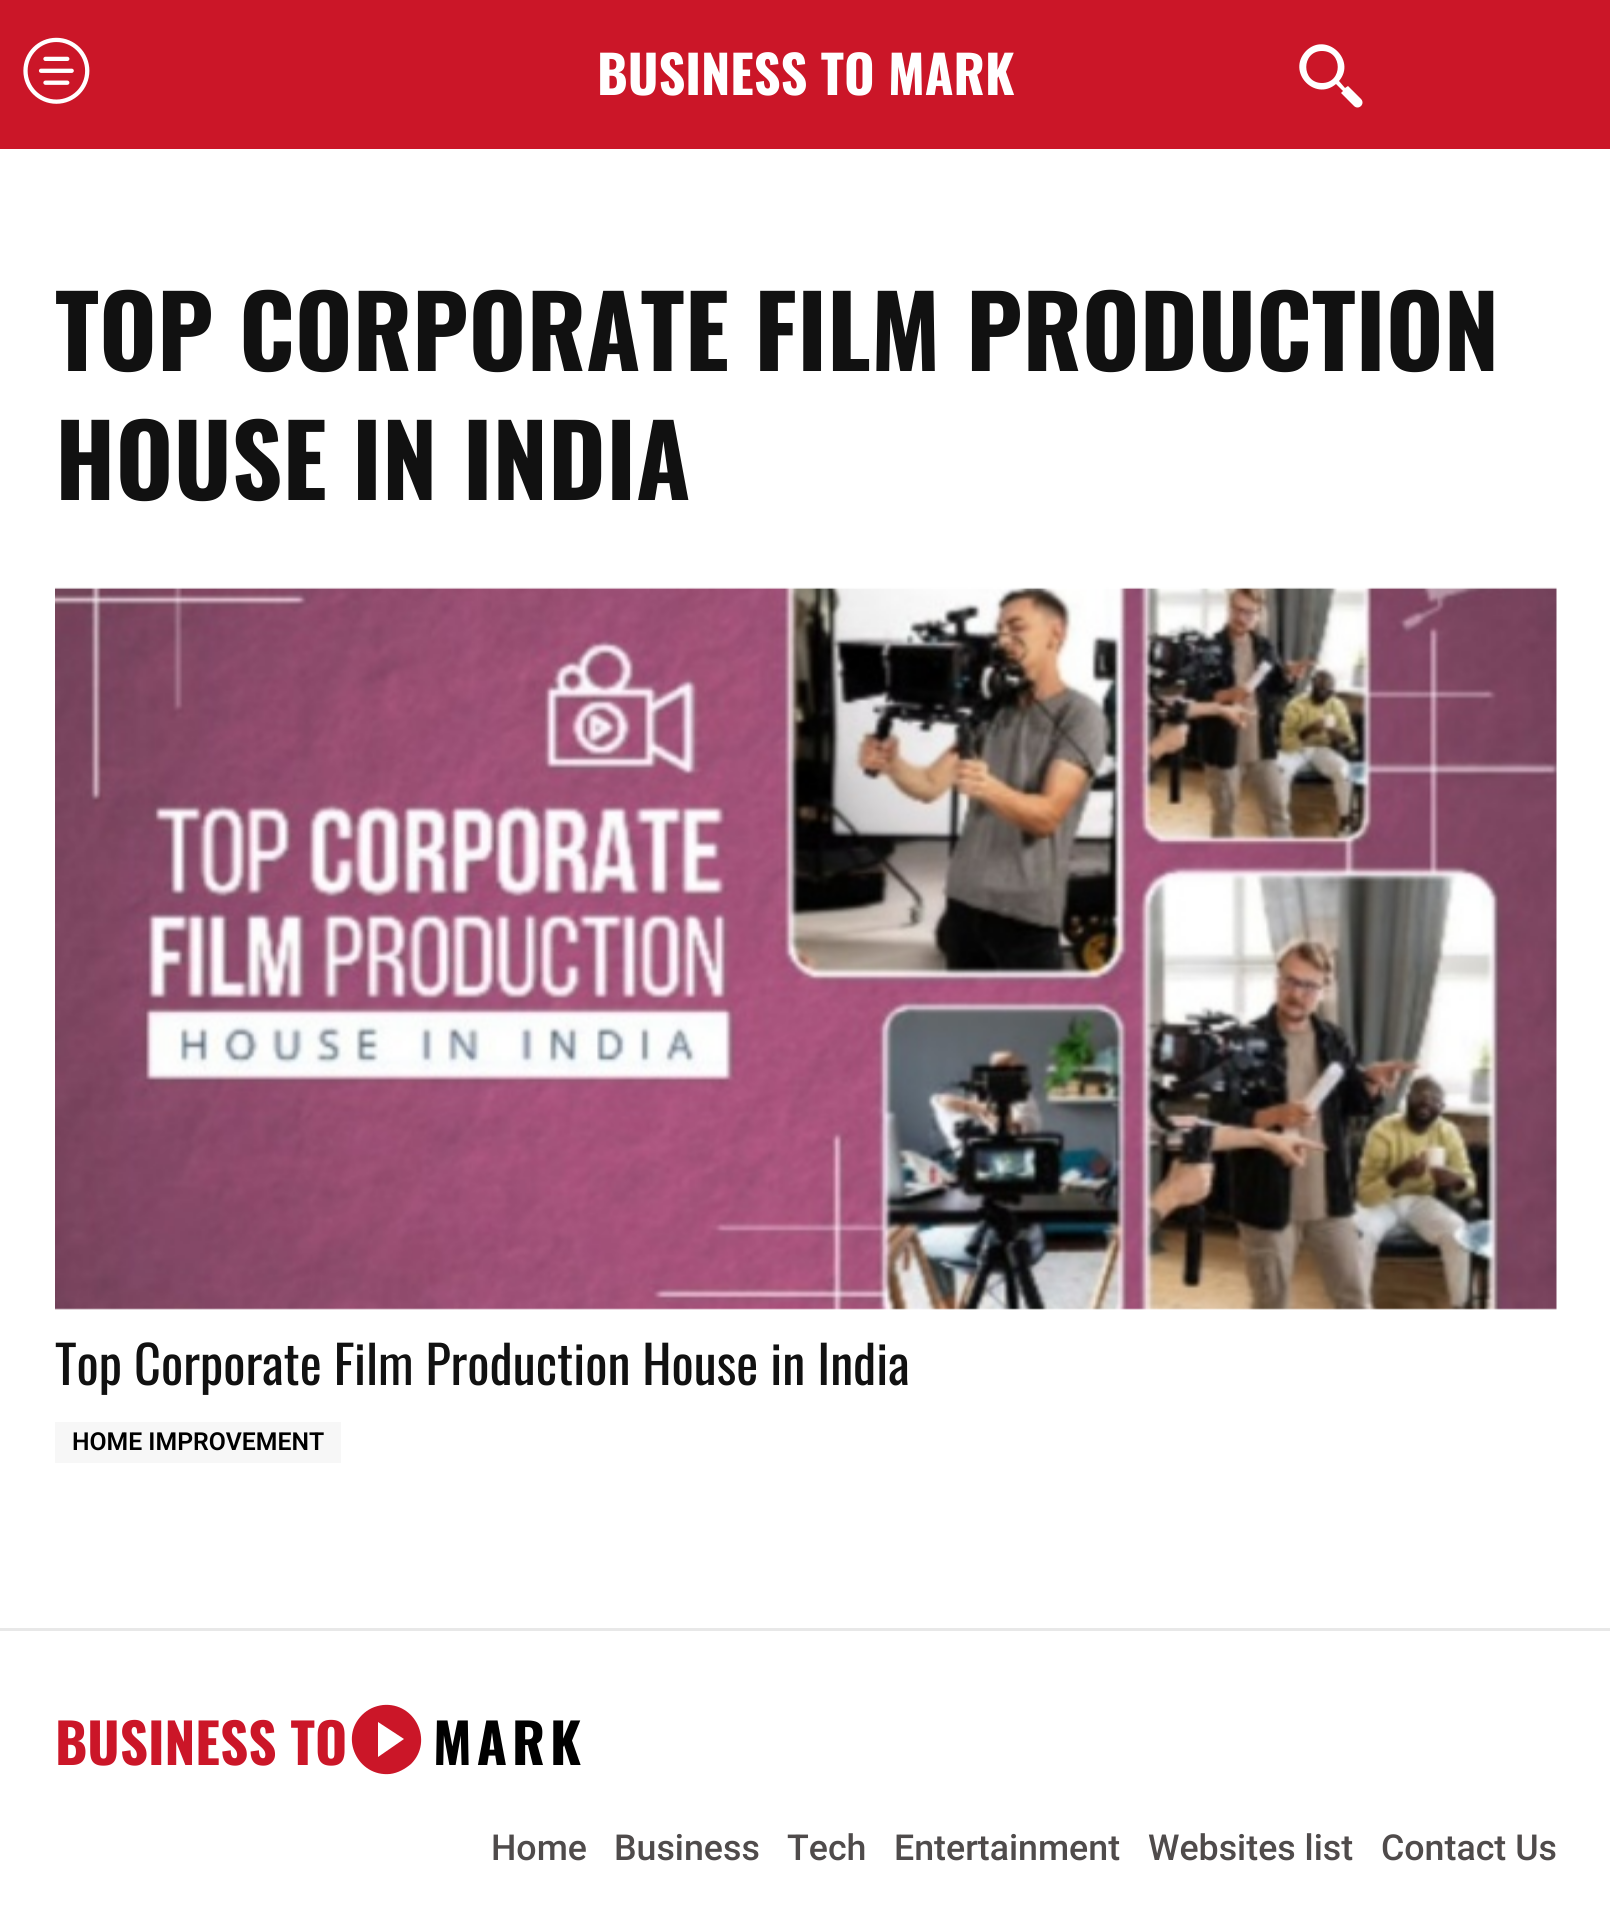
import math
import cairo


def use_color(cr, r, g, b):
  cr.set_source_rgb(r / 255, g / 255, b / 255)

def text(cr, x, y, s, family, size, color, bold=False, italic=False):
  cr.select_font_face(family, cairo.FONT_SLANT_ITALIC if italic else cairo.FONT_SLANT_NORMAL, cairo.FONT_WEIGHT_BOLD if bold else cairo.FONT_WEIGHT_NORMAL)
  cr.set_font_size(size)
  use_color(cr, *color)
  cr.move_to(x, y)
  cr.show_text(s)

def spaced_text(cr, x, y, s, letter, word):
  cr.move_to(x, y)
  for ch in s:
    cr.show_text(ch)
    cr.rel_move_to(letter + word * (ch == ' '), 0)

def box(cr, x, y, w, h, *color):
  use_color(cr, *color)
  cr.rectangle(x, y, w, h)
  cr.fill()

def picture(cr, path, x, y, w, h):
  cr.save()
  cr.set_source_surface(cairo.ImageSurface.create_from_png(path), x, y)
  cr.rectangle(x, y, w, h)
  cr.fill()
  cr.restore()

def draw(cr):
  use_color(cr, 255, 255, 255)
  cr.paint()
  box(cr, 0, 0, 1610, 149, 203, 22, 40)
  picture(cr, "img_01.png", 23, 37, 67, 67)
  use_color(cr, 255, 255, 255)
  cr.new_path()
  cr.move_to(1361, 99)
  cr.line_to(1348, 86)
  cr.line_to(1345, 88)
  cr.line_to(1339, 81)
  cr.curve_to(1357, 60, 1326, 31, 1306, 51)
  cr.curve_to(1286, 72, 1315, 102, 1336, 84)
  cr.line_to(1343, 91)
  cr.line_to(1341, 93)
  cr.line_to(1354, 106)
  cr.curve_to(1356, 108, 1359, 108, 1361, 106)
  cr.curve_to(1363, 104, 1363, 101, 1361, 99)
  cr.close_path()
  cr.move_to(1322, 83)
  cr.curve_to(1301, 83, 1301, 51, 1322, 51)
  cr.curve_to(1343, 51, 1343, 83, 1322, 83)
  cr.close_path()
  cr.fill()
  picture(cr, "img_02.png", 55, 587, 1502, 723)
  box(cr, 55, 1422, 286, 41, 247, 247, 247)
  box(cr, 0, 1628, 1610, 3, 232, 232, 232)
  use_color(cr, 203, 22, 40)
  cr.new_path()
  cr.move_to(362, 1715)
  cr.curve_to(368, 1709, 375, 1706, 383, 1705)
  cr.curve_to(415, 1702, 434, 1741, 411, 1764)
  cr.curve_to(405, 1769, 398, 1773, 390, 1774)
  cr.curve_to(358, 1777, 339, 1738, 362, 1715)
  cr.close_path()
  cr.move_to(378, 1722)
  cr.line_to(378, 1757)
  cr.line_to(404, 1739)
  cr.close_path()
  cr.fill()
  text(cr, 597, 95, "BUSINESS TO MARK", "Oswald", 52.25, (255, 255, 255), bold=True)
  text(cr, 55, 371, "TOP CORPORATE FILM PRODUCTION", "Oswald", 99, (17, 17, 17), bold=True)
  text(cr, 55, 500, "HOUSE IN INDIA", "Oswald", 99, (17, 17, 17), bold=True)
  text(cr, 55, 1385, "Top Corporate Film Production House in India", "Oswald", 52.25, (17, 17, 17))
  text(cr, 72, 1450, "HOME IMPROVEMENT", "Roboto SemiBold", 24.75, (0, 0, 0))
  text(cr, 55, 1765, "BUSINESS TO", "Oswald", 55, (203, 22, 40), bold=True)
  use_color(cr, 0, 0, 0)
  spaced_text(cr, 433, 1765, "MARK", 5, 0)
  text(cr, 491, 1860, "Home", "Roboto Medium", 35.75, (79, 75, 75))
  text(cr, 614, 1860, "Business", "Roboto Medium", 35.75, (79, 75, 75))
  text(cr, 787, 1860, "Tech", "Roboto Medium", 35.75, (79, 75, 75))
  text(cr, 894, 1860, "Entertainment", "Roboto Medium", 35.75, (79, 75, 75))
  text(cr, 1148, 1860, "Websites list", "Roboto Medium", 35.75, (79, 75, 75))
  text(cr, 1381, 1860, "Contact Us", "Roboto Medium", 35.75, (79, 75, 75))


surface = cairo.ImageSurface(cairo.FORMAT_RGB24, 1610, 1920)
cr = cairo.Context(surface)
options = cairo.FontOptions()
options.set_hint_metrics(cairo.HINT_METRICS_OFF)
options.set_hint_style(cairo.HINT_STYLE_NONE)
cr.set_font_options(options)
cr.set_miter_limit(4)
draw(cr)
surface.write_to_png("out.png")
